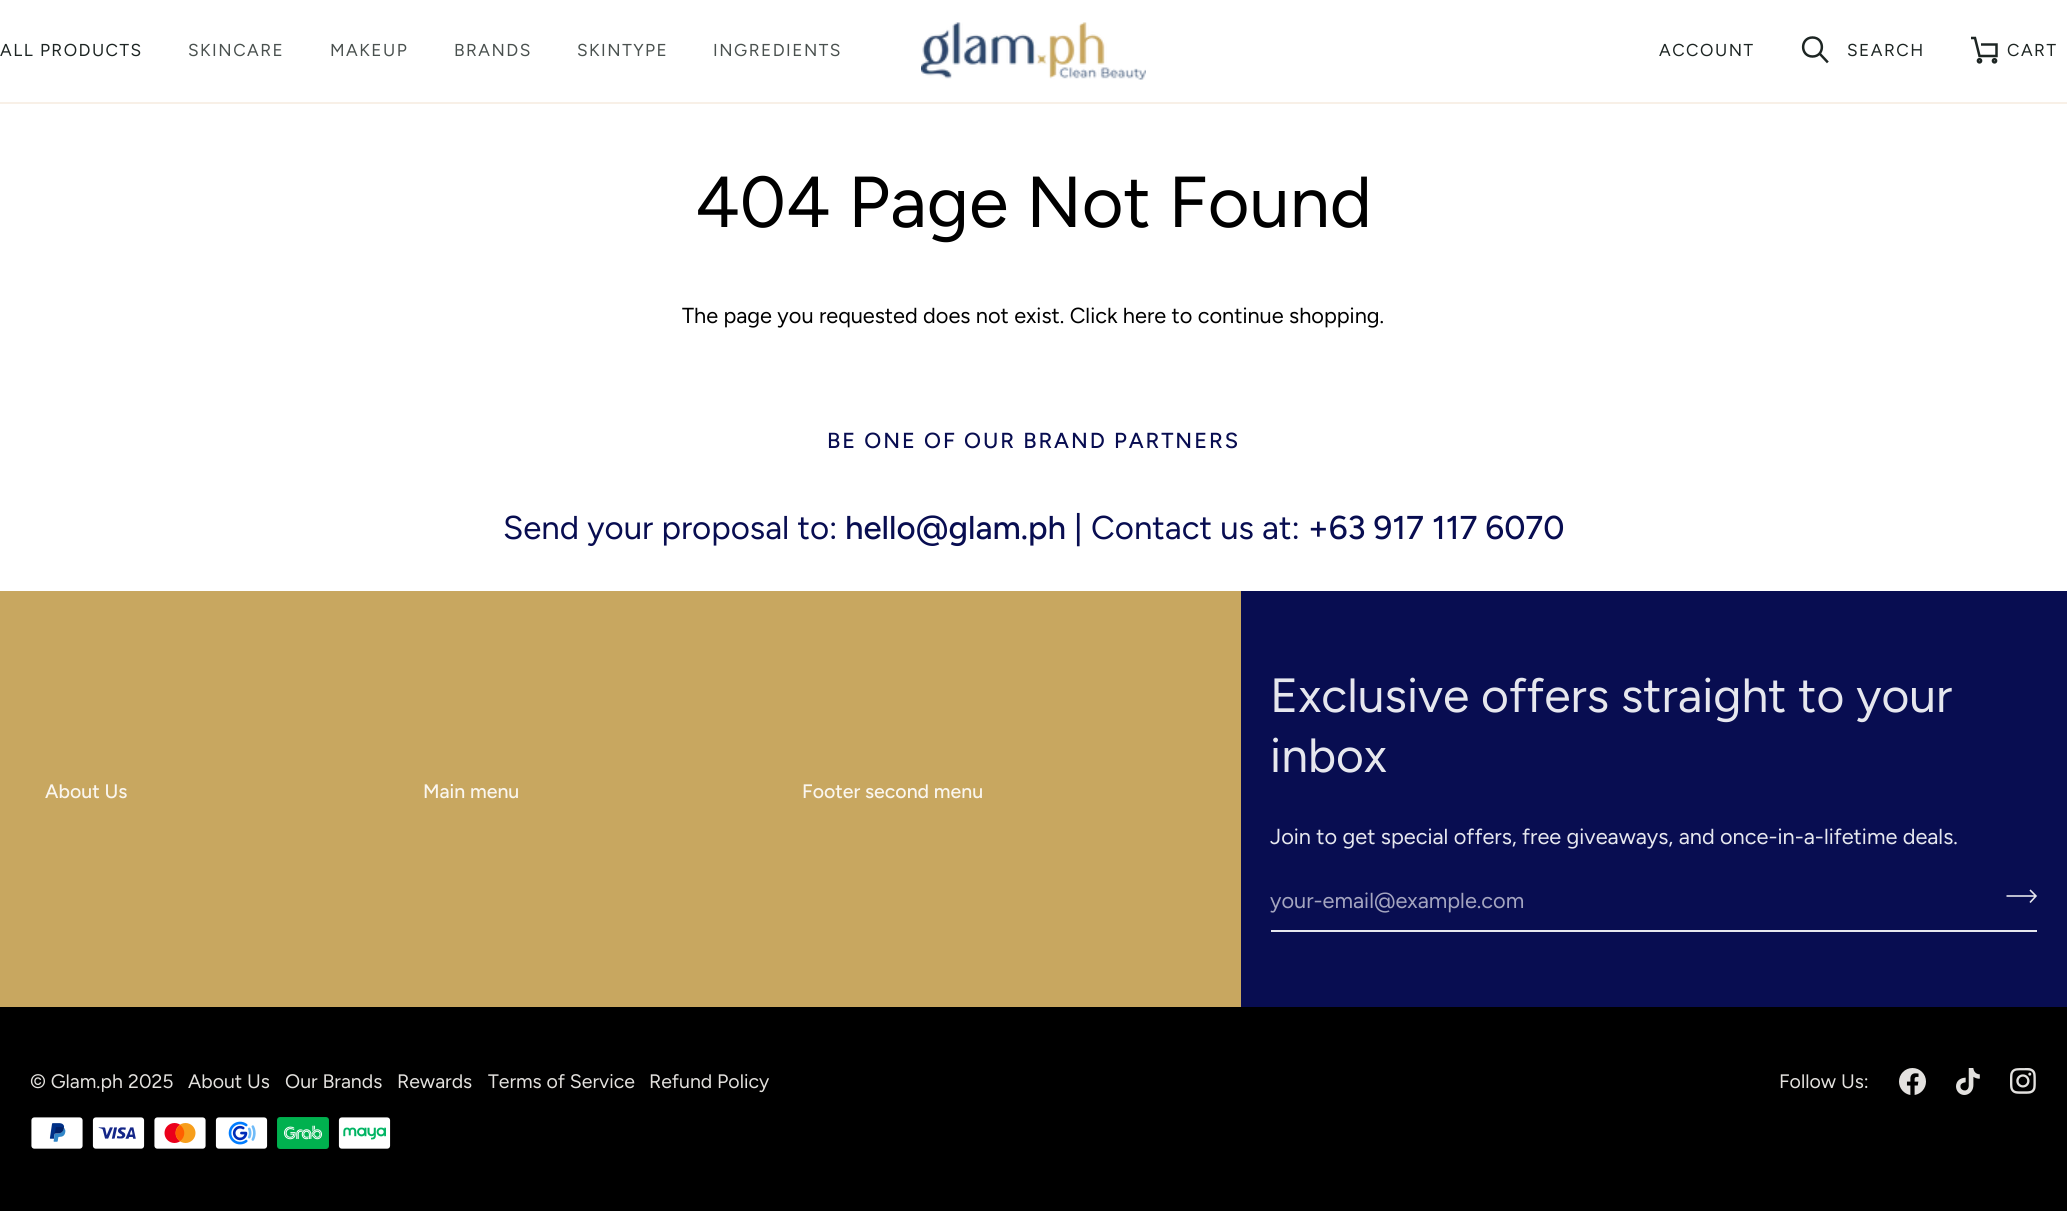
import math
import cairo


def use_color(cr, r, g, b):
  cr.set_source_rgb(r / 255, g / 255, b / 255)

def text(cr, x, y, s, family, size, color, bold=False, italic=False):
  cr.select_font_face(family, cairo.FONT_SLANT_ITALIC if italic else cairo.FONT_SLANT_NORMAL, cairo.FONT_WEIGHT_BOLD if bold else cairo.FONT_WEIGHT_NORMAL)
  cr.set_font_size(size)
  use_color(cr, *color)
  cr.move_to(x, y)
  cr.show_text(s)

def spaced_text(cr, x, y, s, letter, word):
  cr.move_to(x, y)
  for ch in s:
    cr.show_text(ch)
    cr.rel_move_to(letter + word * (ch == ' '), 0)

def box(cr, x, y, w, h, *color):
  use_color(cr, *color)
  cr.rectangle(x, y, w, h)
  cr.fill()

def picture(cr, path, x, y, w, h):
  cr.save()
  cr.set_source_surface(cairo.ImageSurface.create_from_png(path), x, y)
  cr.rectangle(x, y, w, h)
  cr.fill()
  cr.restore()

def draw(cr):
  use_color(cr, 255, 255, 255)
  cr.paint()
  box(cr, 0, 102, 2067, 2, 248, 240, 231)
  picture(cr, "img_01.png", 921, 22, 225, 58)
  cr.new_path()
  cr.move_to(1812.5, 56.5)
  cr.curve_to(1825, 56.5, 1825, 37.5, 1812.5, 37.5)
  cr.curve_to(1800, 37.5, 1800, 56.5, 1812.5, 56.5)
  cr.close_path()
  cr.move_to(1827, 61.5)
  cr.line_to(1820, 54)
  use_color(cr, 29, 37, 35)
  cr.set_line_width(2.5)
  cr.set_line_cap(cairo.LINE_CAP_SQUARE)
  cr.stroke()
  cr.new_path()
  cr.move_to(1971, 38)
  cr.line_to(1975, 38)
  cr.line_to(1979.5, 56)
  cr.line_to(1996.5, 56)
  cr.line_to(1996.5, 44.5)
  cr.line_to(1981, 44.5)
  cr.set_line_cap(cairo.LINE_CAP_BUTT)
  cr.stroke()
  cr.arc(1979.5, 60.8, 1.6, 0, 2 * math.pi)
  cr.stroke()
  cr.arc(1994.5, 60.8, 1.6, 0, 2 * math.pi)
  cr.stroke()
  box(cr, 0, 591, 1241, 416, 200, 167, 96)
  box(cr, 1241, 591, 826, 416, 8, 13, 81)
  box(cr, 1271, 930, 766, 2, 230, 231, 238)
  cr.new_path()
  cr.move_to(2030, 890)
  cr.line_to(2036, 896)
  cr.line_to(2030, 902.5)
  cr.move_to(2006.5, 896)
  cr.line_to(2036, 896)
  cr.set_line_width(1.6)
  cr.stroke()
  box(cr, 0, 1007, 2067, 204, 0, 0, 0)
  picture(cr, "img_02.png", 1899, 1068, 27, 27)
  picture(cr, "img_03.png", 1956, 1068, 24, 27)
  picture(cr, "img_04.png", 2010, 1068, 26, 26)
  picture(cr, "img_05.png", 31, 1117, 52, 32)
  picture(cr, "img_06.png", 92, 1117, 53, 32)
  picture(cr, "img_07.png", 154, 1117, 52, 32)
  picture(cr, "img_08.png", 215, 1117, 53, 32)
  picture(cr, "img_09.png", 277, 1117, 52, 32)
  picture(cr, "img_10.png", 338, 1117, 53, 32)
  cr.select_font_face("Figtree")
  cr.set_font_size(17.25)
  use_color(cr, 29, 37, 35)
  spaced_text(cr, 0, 56, "ALL PRODUCTS", 1.5, 0)
  use_color(cr, 74, 81, 79)
  spaced_text(cr, 188, 56, "SKINCARE", 1.5, 0)
  spaced_text(cr, 330, 56, "MAKEUP", 1.5, 0)
  spaced_text(cr, 454, 56, "BRANDS", 1.5, 0)
  spaced_text(cr, 577, 56, "SKINTYPE", 1.5, 0)
  spaced_text(cr, 713, 56, "INGREDIENTS", 1.5, 0)
  use_color(cr, 29, 37, 35)
  spaced_text(cr, 1659, 56, "ACCOUNT", 1.5, 0)
  spaced_text(cr, 1847, 56, "SEARCH", 1.5, 0)
  spaced_text(cr, 2007, 56, "CART", 1.5, 0)
  text(cr, 695, 227, "404 Page Not Found", "Figtree", 72, (0, 0, 0))
  text(cr, 682, 323, "The page you requested does not exist. Click here to continue shopping.", "Figtree", 21.75, (0, 0, 0))
  cr.select_font_face("Figtree Medium")
  use_color(cr, 8, 13, 81)
  spaced_text(cr, 827, 448, "BE ONE OF OUR BRAND PARTNERS", 1.95, 0)
  text(cr, 503, 539, "Send your proposal to:", "Figtree", 33, (8, 13, 81))
  text(cr, 845, 539, "hello@glam.ph |", "Figtree Medium", 33, (8, 13, 81))
  text(cr, 1091, 539, "Contact us at:", "Figtree", 33, (8, 13, 81))
  text(cr, 1308, 539, "+63 917 117 6070", "Figtree Medium", 33, (8, 13, 81))
  text(cr, 45, 798, "About Us", "Figtree Medium", 19.5, (250, 246, 239))
  text(cr, 423, 798, "Main menu", "Figtree Medium", 19.5, (250, 246, 239))
  text(cr, 802, 798, "Footer second menu", "Figtree Medium", 19.5, (250, 246, 239))
  text(cr, 1270, 712, "Exclusive offers straight to your", "Figtree", 48, (230, 231, 238))
  text(cr, 1270, 772, "inbox", "Figtree", 48, (230, 231, 238))
  text(cr, 1270, 844, "Join to get special offers, free giveaways, and once-in-a-lifetime deals.", "Figtree", 21.75, (230, 231, 238))
  text(cr, 1270, 908, "your-email@example.com", "Figtree", 21.75, (164, 165, 191))
  text(cr, 30, 1088, "© Glam.ph", "Figtree", 19.5, (227, 225, 222))
  text(cr, 128, 1088, "2025", "Figtree", 19.5, (227, 225, 222))
  text(cr, 188, 1088, "About Us", "Figtree", 19.5, (227, 225, 222))
  text(cr, 285, 1088, "Our Brands", "Figtree", 19.5, (227, 225, 222))
  text(cr, 397, 1088, "Rewards", "Figtree", 19.5, (227, 225, 222))
  text(cr, 488, 1088, "Terms of Service", "Figtree", 19.5, (227, 225, 222))
  text(cr, 649, 1088, "Refund Policy", "Figtree", 19.5, (227, 225, 222))
  text(cr, 1779, 1088, "Follow Us:", "Figtree", 19.5, (227, 225, 222))


surface = cairo.ImageSurface(cairo.FORMAT_RGB24, 2067, 1211)
cr = cairo.Context(surface)
options = cairo.FontOptions()
options.set_hint_metrics(cairo.HINT_METRICS_OFF)
options.set_hint_style(cairo.HINT_STYLE_NONE)
cr.set_font_options(options)
cr.set_miter_limit(4)
draw(cr)
surface.write_to_png("out.png")
